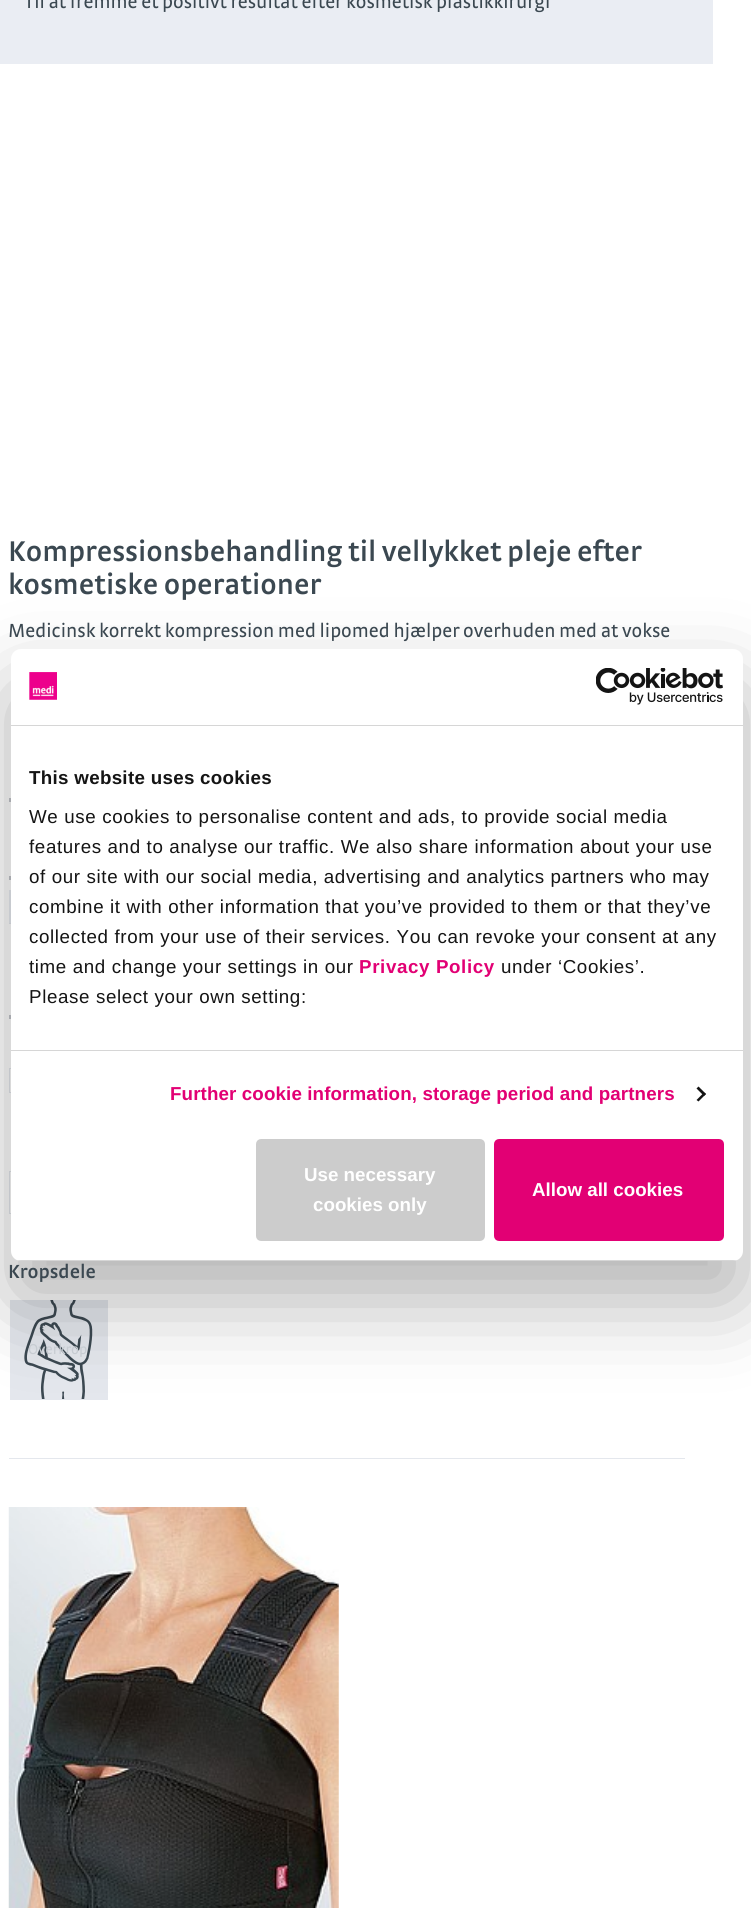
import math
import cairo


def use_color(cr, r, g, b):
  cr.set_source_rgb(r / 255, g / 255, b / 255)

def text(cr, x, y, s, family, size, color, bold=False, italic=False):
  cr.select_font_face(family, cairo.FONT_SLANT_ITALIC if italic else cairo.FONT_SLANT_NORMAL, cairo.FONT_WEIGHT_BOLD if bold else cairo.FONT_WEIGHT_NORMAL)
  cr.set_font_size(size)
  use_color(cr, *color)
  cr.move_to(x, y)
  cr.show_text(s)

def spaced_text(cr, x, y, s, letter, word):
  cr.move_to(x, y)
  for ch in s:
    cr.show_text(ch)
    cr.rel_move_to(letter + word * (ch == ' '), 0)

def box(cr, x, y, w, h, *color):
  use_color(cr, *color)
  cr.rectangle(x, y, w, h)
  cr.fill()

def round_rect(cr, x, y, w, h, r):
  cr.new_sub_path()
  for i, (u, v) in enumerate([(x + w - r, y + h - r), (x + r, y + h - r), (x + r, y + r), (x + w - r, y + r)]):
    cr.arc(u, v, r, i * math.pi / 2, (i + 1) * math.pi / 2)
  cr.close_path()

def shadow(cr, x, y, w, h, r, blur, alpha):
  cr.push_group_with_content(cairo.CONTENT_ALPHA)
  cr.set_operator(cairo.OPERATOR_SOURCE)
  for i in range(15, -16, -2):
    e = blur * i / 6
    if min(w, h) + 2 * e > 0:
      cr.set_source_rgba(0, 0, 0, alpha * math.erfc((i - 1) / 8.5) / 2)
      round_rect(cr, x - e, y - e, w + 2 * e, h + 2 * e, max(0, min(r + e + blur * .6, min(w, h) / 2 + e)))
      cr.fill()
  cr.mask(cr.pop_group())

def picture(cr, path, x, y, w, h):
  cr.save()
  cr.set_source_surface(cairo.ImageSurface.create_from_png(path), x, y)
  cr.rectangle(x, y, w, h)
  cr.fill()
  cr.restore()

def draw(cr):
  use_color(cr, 255, 255, 255)
  cr.paint()
  box(cr, 0, 0, 713, 64, 234, 237, 243)
  box(cr, 9, 798, 2, 4, 195, 198, 203)
  box(cr, 9, 923, 2, 1, 228, 231, 237)
  box(cr, 9, 876, 2, 4, 195, 198, 203)
  box(cr, 9, 890, 2, 33, 234, 237, 243)
  box(cr, 9, 1458, 676, 1, 228, 231, 237)
  box(cr, 9, 1015, 2, 4, 195, 198, 203)
  cr.rectangle(9.5, 1068.5, 24, 24)
  use_color(cr, 228, 231, 237)
  cr.set_line_width(1)
  cr.stroke()
  cr.rectangle(9.5, 1171.5, 39, 42)
  cr.stroke()
  box(cr, 10, 1300, 98, 100, 228, 231, 237)
  picture(cr, "img_01.png", 24, 1300, 69, 99)
  picture(cr, "img_02.png", 8, 1507, 331, 401)
  use_color(cr, 0, 0, 0)
  shadow(cr, 11, 689, 732, 612, 10, 42.5, 0.3)
  use_color(cr, 255, 255, 255)
  round_rect(cr, 11, 649, 732, 612, 10)
  cr.fill()
  box(cr, 11, 725, 732, 1, 214, 214, 214)
  picture(cr, "img_03.png", 29, 672, 28, 28)
  picture(cr, "img_04.png", 596, 668, 127, 37)
  box(cr, 11, 1050, 732, 1, 214, 214, 214)
  use_color(cr, 20, 20, 20)
  cr.new_path()
  cr.move_to(698.5, 1086.5)
  cr.line_to(706, 1094)
  cr.line_to(704, 1096)
  cr.line_to(696.5, 1088.5)
  cr.close_path()
  cr.fill()
  cr.new_path()
  cr.move_to(704, 1092.5)
  cr.line_to(706, 1094)
  cr.line_to(698.5, 1101.5)
  cr.line_to(696.5, 1100)
  cr.close_path()
  cr.fill()
  cr.save()
  round_rect(cr, 11, 649, 732, 612, 10)
  cr.clip()
  box(cr, 11, 1260, 732, 1, 214, 214, 214)
  cr.restore()
  use_color(cr, 204, 204, 204)
  round_rect(cr, 257.5, 1140.5, 226, 99, 3.5)
  cr.fill_preserve()
  cr.set_line_width(3)
  cr.stroke()
  use_color(cr, 226, 0, 116)
  round_rect(cr, 495.5, 1140.5, 227, 99, 3.5)
  cr.fill_preserve()
  cr.stroke()
  text(cr, 24, 8, "Til at fremme et positivt resultat efter kosmetisk plastikkirurgi", "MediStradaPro", 20, (59, 72, 81))
  text(cr, 8, 561, "Kompressionsbehandling til vellykket pleje efter", "MediStradaPro SemiBold", 30, (59, 72, 81))
  text(cr, 8, 594, "kosmetiske operationer", "MediStradaPro SemiBold", 30, (59, 72, 81))
  text(cr, 8, 637, "Medicinsk korrekt kompression med lipomed hjælper overhuden med at vokse", "MediStradaPro", 20, (59, 72, 81))
  text(cr, 8, 1278, "Kropsdele", "MediStradaPro SemiBold", 20, (59, 72, 81))
  text(cr, 28, 1354, "Overkrop", "MediStradaPro", 15, (199, 204, 210))
  cr.select_font_face("Liberation Sans", cairo.FONT_SLANT_NORMAL, cairo.FONT_WEIGHT_BOLD)
  cr.set_font_size(18.75)
  use_color(cr, 20, 20, 20)
  spaced_text(cr, 29, 784, "This website uses cookies", 0.3, 0)
  cr.select_font_face("Liberation Sans")
  spaced_text(cr, 29, 823, "We use cookies to personalise content and ads, to provide social media", 0.62, 0)
  spaced_text(cr, 29, 853, "features and to analyse our traffic. We also share information about your use", 0.62, 0)
  spaced_text(cr, 29, 883, "of our site with our social media, advertising and analytics partners who may", 0.62, 0)
  spaced_text(cr, 29, 913, "combine it with other information that you’ve provided to them or that they’ve", 0.62, 0)
  spaced_text(cr, 29, 943, "collected from your use of their services. You can revoke your consent at any", 0.62, 0)
  spaced_text(cr, 29, 973, "time and change your settings in our", 0.62, 0)
  cr.select_font_face("Liberation Sans", cairo.FONT_SLANT_NORMAL, cairo.FONT_WEIGHT_BOLD)
  use_color(cr, 226, 0, 116)
  spaced_text(cr, 359, 973, "Privacy Policy", 0.62, 0)
  cr.select_font_face("Liberation Sans")
  use_color(cr, 20, 20, 20)
  spaced_text(cr, 501, 973, "under ‘Cookies’.", 0.62, 0)
  spaced_text(cr, 29, 1003, "Please select your own setting:", 0.62, 0)
  cr.select_font_face("Liberation Sans", cairo.FONT_SLANT_NORMAL, cairo.FONT_WEIGHT_BOLD)
  use_color(cr, 226, 0, 116)
  spaced_text(cr, 170, 1100, "Further cookie information, storage period and partners", 0.12, 0)
  text(cr, 304, 1181, "Use necessary", "Liberation Sans", 18.75, (255, 255, 255), bold=True)
  text(cr, 313, 1211, "cookies only", "Liberation Sans", 18.75, (255, 255, 255), bold=True)
  text(cr, 532, 1196, "Allow all cookies", "Liberation Sans", 18.75, (255, 255, 255), bold=True)


surface = cairo.ImageSurface(cairo.FORMAT_RGB24, 751, 1908)
cr = cairo.Context(surface)
options = cairo.FontOptions()
options.set_hint_metrics(cairo.HINT_METRICS_OFF)
options.set_hint_style(cairo.HINT_STYLE_NONE)
cr.set_font_options(options)
cr.set_miter_limit(4)
draw(cr)
surface.write_to_png("out.png")
